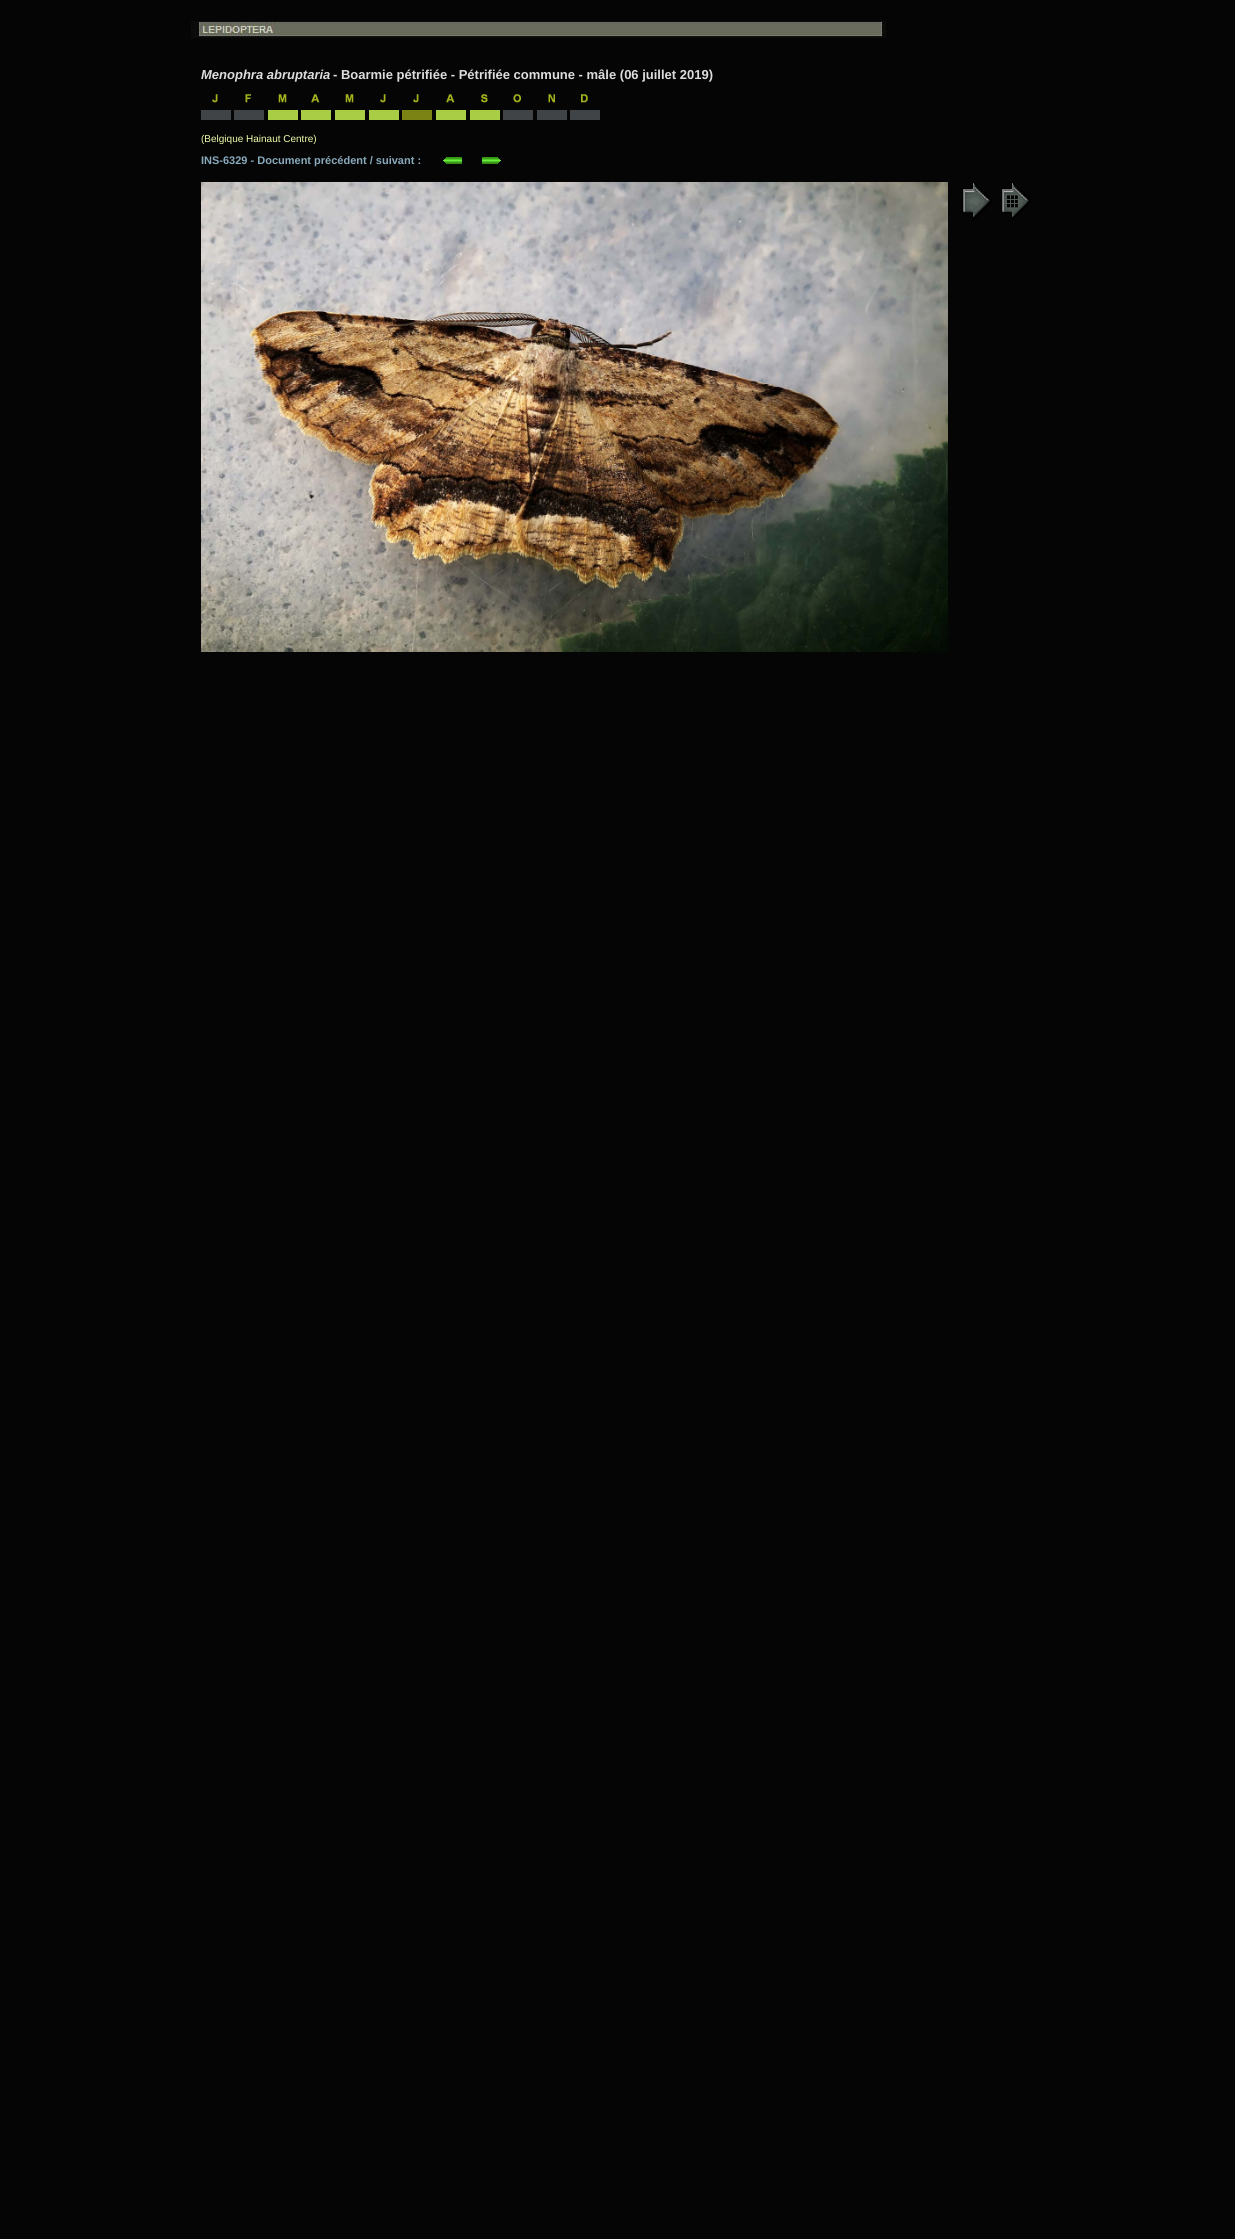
import math
import cairo


def use_color(cr, r, g, b):
  cr.set_source_rgb(r / 255, g / 255, b / 255)

def text(cr, x, y, s, family, size, color, bold=False, italic=False):
  cr.select_font_face(family, cairo.FONT_SLANT_ITALIC if italic else cairo.FONT_SLANT_NORMAL, cairo.FONT_WEIGHT_BOLD if bold else cairo.FONT_WEIGHT_NORMAL)
  cr.set_font_size(size)
  use_color(cr, *color)
  cr.move_to(x, y)
  cr.show_text(s)

def box(cr, x, y, w, h, *color):
  use_color(cr, *color)
  cr.rectangle(x, y, w, h)
  cr.fill()

def picture(cr, path, x, y, w, h):
  cr.save()
  cr.set_source_surface(cairo.ImageSurface.create_from_png(path), x, y)
  cr.rectangle(x, y, w, h)
  cr.fill()
  cr.restore()

def draw(cr):
  use_color(cr, 5, 5, 5)
  cr.paint()
  picture(cr, "img_01.png", 191, 21, 695, 17)
  picture(cr, "img_02.png", 212, 94, 6, 9)
  picture(cr, "img_03.png", 245, 93, 9, 10)
  picture(cr, "img_04.png", 278, 94, 13, 9)
  picture(cr, "img_05.png", 311, 93, 9, 10)
  picture(cr, "img_04.png", 345, 94, 13, 9)
  picture(cr, "img_02.png", 380, 94, 6, 9)
  picture(cr, "img_02.png", 413, 94, 6, 9)
  picture(cr, "img_05.png", 446, 93, 9, 10)
  picture(cr, "img_06.png", 481, 94, 7, 9)
  picture(cr, "img_07.png", 513, 94, 8, 9)
  picture(cr, "img_08.png", 548, 94, 10, 9)
  picture(cr, "img_09.png", 580, 94, 12, 9)
  box(cr, 201, 110, 30, 10, 64, 68, 71)
  box(cr, 234, 110, 30, 10, 64, 68, 71)
  box(cr, 268, 110, 30, 10, 169, 205, 69)
  box(cr, 301, 110, 30, 10, 169, 205, 69)
  box(cr, 335, 110, 30, 10, 169, 205, 69)
  box(cr, 369, 110, 30, 10, 169, 205, 69)
  box(cr, 402, 110, 30, 10, 123, 131, 20)
  box(cr, 436, 110, 30, 10, 169, 205, 69)
  box(cr, 470, 110, 30, 10, 169, 205, 69)
  box(cr, 503, 110, 30, 10, 64, 68, 71)
  box(cr, 537, 110, 30, 10, 64, 68, 71)
  box(cr, 570, 110, 30, 10, 64, 68, 71)
  picture(cr, "img_10.png", 443, 157, 19, 7)
  picture(cr, "img_11.png", 482, 157, 19, 7)
  picture(cr, "img_12.png", 201, 182, 747, 470)
  picture(cr, "img_13.png", 962, 182, 30, 38)
  picture(cr, "img_14.png", 1001, 182, 30, 38)
  text(cr, 201, 79, "Menophra abruptaria", "Liberation Sans", 13, (221, 221, 221), bold=True, italic=True)
  text(cr, 333, 79, "- Boarmie pétrifiée - Pétrifiée commune - mâle (06 juillet 2019)", "Liberation Sans", 13, (221, 221, 221), bold=True)
  text(cr, 201, 142, "(Belgique Hainaut Centre)", "Liberation Sans", 10, (238, 255, 170))
  text(cr, 201, 164, "INS-6329 - Document précédent / suivant :", "Liberation Sans", 11, (137, 170, 188), bold=True)


surface = cairo.ImageSurface(cairo.FORMAT_RGB24, 1235, 2239)
cr = cairo.Context(surface)
options = cairo.FontOptions()
options.set_hint_metrics(cairo.HINT_METRICS_OFF)
options.set_hint_style(cairo.HINT_STYLE_NONE)
cr.set_font_options(options)
cr.set_miter_limit(4)
draw(cr)
surface.write_to_png("out.png")
